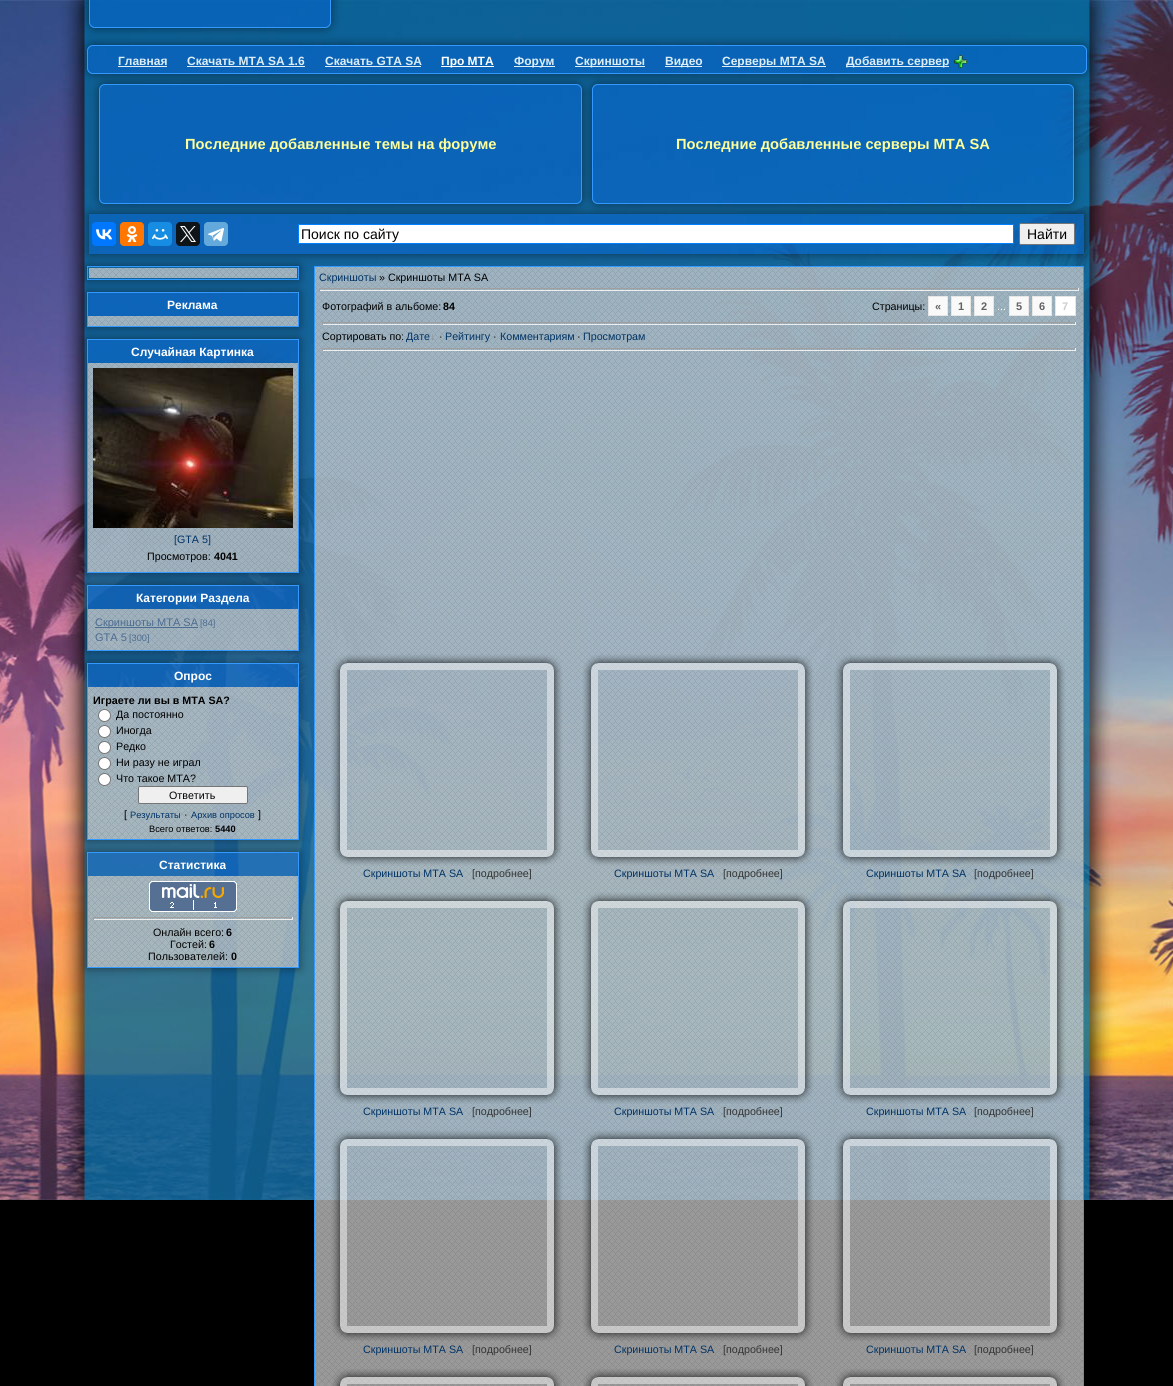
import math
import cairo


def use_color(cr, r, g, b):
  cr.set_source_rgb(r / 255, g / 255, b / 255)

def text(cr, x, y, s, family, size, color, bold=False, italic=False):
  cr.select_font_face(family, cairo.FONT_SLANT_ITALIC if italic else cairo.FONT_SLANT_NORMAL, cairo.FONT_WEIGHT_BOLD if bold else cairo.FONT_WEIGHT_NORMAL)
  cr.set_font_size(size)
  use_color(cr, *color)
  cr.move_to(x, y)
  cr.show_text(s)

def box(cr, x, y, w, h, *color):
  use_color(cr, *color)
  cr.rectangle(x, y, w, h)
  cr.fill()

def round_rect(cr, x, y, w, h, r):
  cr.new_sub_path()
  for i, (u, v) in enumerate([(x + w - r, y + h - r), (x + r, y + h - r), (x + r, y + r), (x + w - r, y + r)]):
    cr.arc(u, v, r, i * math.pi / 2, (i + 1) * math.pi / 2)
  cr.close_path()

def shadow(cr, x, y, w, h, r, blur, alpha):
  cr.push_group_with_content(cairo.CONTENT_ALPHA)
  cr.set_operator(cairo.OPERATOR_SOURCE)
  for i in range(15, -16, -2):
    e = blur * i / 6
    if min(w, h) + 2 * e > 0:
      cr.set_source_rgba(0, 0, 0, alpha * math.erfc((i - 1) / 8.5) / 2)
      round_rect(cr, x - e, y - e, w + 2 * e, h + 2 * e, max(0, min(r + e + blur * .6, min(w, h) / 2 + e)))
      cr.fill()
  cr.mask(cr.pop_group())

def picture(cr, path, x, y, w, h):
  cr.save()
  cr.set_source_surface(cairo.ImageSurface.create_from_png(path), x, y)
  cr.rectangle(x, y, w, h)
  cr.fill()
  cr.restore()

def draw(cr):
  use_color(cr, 0, 0, 0)
  cr.paint()
  picture(cr, "img_01.png", 0, 0, 1173, 1200)
  cr.save()
  cr.set_fill_rule(cairo.FILL_RULE_EVEN_ODD)
  cr.new_path()
  cr.move_to(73, 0)
  cr.line_to(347, 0)
  cr.line_to(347, 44)
  cr.line_to(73, 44)
  cr.close_path()
  cr.move_to(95, -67)
  cr.line_to(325, -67)
  cr.curve_to(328.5, -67, 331, -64.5, 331, -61)
  cr.line_to(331, 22)
  cr.curve_to(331, 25.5, 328.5, 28, 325, 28)
  cr.line_to(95, 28)
  cr.curve_to(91.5, 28, 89, 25.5, 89, 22)
  cr.line_to(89, -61)
  cr.curve_to(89, -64.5, 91.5, -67, 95, -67)
  cr.close_path()
  cr.clip()
  shadow(cr, 89, -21, 242, 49, 6, 5, 0.5)
  cr.restore()
  picture(cr, "img_02.png", 89, 0, 242, 28)
  round_rect(cr, 89.5, -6.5, 241, 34, 5.5)
  use_color(cr, 51, 153, 255)
  cr.set_line_width(1)
  cr.stroke()
  cr.save()
  cr.set_fill_rule(cairo.FILL_RULE_EVEN_ODD)
  cr.new_path()
  cr.move_to(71, 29)
  cr.line_to(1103, 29)
  cr.line_to(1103, 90)
  cr.line_to(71, 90)
  cr.close_path()
  cr.move_to(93, 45)
  cr.line_to(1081, 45)
  cr.curve_to(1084.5, 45, 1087, 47.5, 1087, 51)
  cr.line_to(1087, 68)
  cr.curve_to(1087, 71.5, 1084.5, 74, 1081, 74)
  cr.line_to(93, 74)
  cr.curve_to(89.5, 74, 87, 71.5, 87, 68)
  cr.line_to(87, 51)
  cr.curve_to(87, 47.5, 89.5, 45, 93, 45)
  cr.close_path()
  cr.clip()
  use_color(cr, 0, 0, 0)
  shadow(cr, 87, 45, 1000, 29, 6, 5, 0.5)
  cr.restore()
  picture(cr, "img_03.png", 87, 45, 1000, 29)
  round_rect(cr, 87.5, 45.5, 999, 28, 5.5)
  cr.stroke()
  box(cr, 118, 66, 49, 1, 221, 238, 247)
  box(cr, 187, 66, 118, 1, 221, 238, 247)
  box(cr, 325, 66, 96, 1, 221, 238, 247)
  box(cr, 441, 66, 53, 1, 255, 255, 255)
  box(cr, 514, 66, 41, 1, 221, 238, 247)
  box(cr, 575, 66, 70, 1, 221, 238, 247)
  box(cr, 665, 66, 37, 1, 221, 238, 247)
  box(cr, 722, 66, 104, 1, 221, 238, 247)
  box(cr, 846, 66, 103, 1, 221, 238, 247)
  picture(cr, "img_04.png", 954, 55, 13, 13)
  cr.save()
  cr.set_fill_rule(cairo.FILL_RULE_EVEN_ODD)
  cr.new_path()
  cr.move_to(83, 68)
  cr.line_to(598, 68)
  cr.line_to(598, 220)
  cr.line_to(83, 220)
  cr.close_path()
  cr.move_to(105, 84)
  cr.line_to(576, 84)
  cr.curve_to(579.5, 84, 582, 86.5, 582, 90)
  cr.line_to(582, 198)
  cr.curve_to(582, 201.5, 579.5, 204, 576, 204)
  cr.line_to(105, 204)
  cr.curve_to(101.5, 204, 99, 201.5, 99, 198)
  cr.line_to(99, 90)
  cr.curve_to(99, 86.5, 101.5, 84, 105, 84)
  cr.close_path()
  cr.clip()
  use_color(cr, 0, 0, 0)
  shadow(cr, 99, 84, 483, 120, 6, 5, 0.5)
  cr.restore()
  picture(cr, "img_05.png", 99, 84, 483, 120)
  round_rect(cr, 99.5, 84.5, 482, 119, 5.5)
  use_color(cr, 51, 153, 255)
  cr.stroke()
  cr.save()
  cr.set_fill_rule(cairo.FILL_RULE_EVEN_ODD)
  cr.new_path()
  cr.move_to(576, 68)
  cr.line_to(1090, 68)
  cr.line_to(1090, 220)
  cr.line_to(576, 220)
  cr.close_path()
  cr.move_to(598, 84)
  cr.line_to(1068, 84)
  cr.curve_to(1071.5, 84, 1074, 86.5, 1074, 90)
  cr.line_to(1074, 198)
  cr.curve_to(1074, 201.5, 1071.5, 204, 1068, 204)
  cr.line_to(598, 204)
  cr.curve_to(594.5, 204, 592, 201.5, 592, 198)
  cr.line_to(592, 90)
  cr.curve_to(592, 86.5, 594.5, 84, 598, 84)
  cr.close_path()
  cr.clip()
  use_color(cr, 0, 0, 0)
  shadow(cr, 592, 84, 482, 120, 6, 5, 0.5)
  cr.restore()
  picture(cr, "img_06.png", 592, 84, 482, 120)
  round_rect(cr, 592.5, 84.5, 481, 119, 5.5)
  cr.stroke()
  cr.save()
  cr.set_fill_rule(cairo.FILL_RULE_EVEN_ODD)
  cr.new_path()
  cr.move_to(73, 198)
  cr.line_to(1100, 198)
  cr.line_to(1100, 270)
  cr.line_to(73, 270)
  cr.close_path()
  cr.move_to(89, 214)
  cr.line_to(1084, 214)
  cr.line_to(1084, 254)
  cr.line_to(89, 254)
  cr.close_path()
  cr.clip()
  use_color(cr, 0, 0, 0)
  shadow(cr, 89, 214, 995, 40, 0, 5, 0.5)
  cr.restore()
  cr.set_source_rgba(0, 0.404, 1, 0.3)
  cr.rectangle(89, 214, 995, 40)
  cr.fill()
  use_color(cr, 0, 119, 255)
  round_rect(cr, 92, 222, 24, 24, 4)
  cr.fill()
  picture(cr, "img_07.png", 96, 229, 16, 11)
  use_color(cr, 255, 119, 0)
  round_rect(cr, 120, 222, 24, 24, 4)
  cr.fill()
  picture(cr, "img_08.png", 126, 226, 12, 16)
  use_color(cr, 22, 141, 226)
  round_rect(cr, 148, 222, 24, 24, 4)
  cr.fill()
  picture(cr, "img_09.png", 152, 229, 16, 11)
  use_color(cr, 15, 20, 25)
  round_rect(cr, 176, 222, 24, 24, 4)
  cr.fill()
  picture(cr, "img_10.png", 180, 226, 16, 16)
  use_color(cr, 100, 169, 220)
  round_rect(cr, 204, 222, 24, 24, 4)
  cr.fill()
  picture(cr, "img_11.png", 208, 228, 16, 14)
  use_color(cr, 255, 255, 255)
  cr.rectangle(298.5, 224.5, 715, 19)
  cr.fill_preserve()
  use_color(cr, 0, 127, 255)
  cr.stroke()
  use_color(cr, 239, 239, 239)
  round_rect(cr, 1019.5, 223.5, 55, 21, 1.5)
  cr.fill_preserve()
  use_color(cr, 118, 118, 118)
  cr.stroke()
  cr.save()
  cr.set_fill_rule(cairo.FILL_RULE_EVEN_ODD)
  cr.new_path()
  cr.move_to(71, 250)
  cr.line_to(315, 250)
  cr.line_to(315, 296)
  cr.line_to(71, 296)
  cr.close_path()
  cr.move_to(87, 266)
  cr.line_to(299, 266)
  cr.line_to(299, 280)
  cr.line_to(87, 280)
  cr.close_path()
  cr.clip()
  use_color(cr, 0, 0, 0)
  shadow(cr, 87, 266, 212, 14, 0, 5, 0.5)
  cr.restore()
  cr.rectangle(87.5, 266.5, 211, 13)
  use_color(cr, 51, 153, 255)
  cr.stroke()
  picture(cr, "img_12.png", 89, 268, 208, 10)
  cr.save()
  cr.set_fill_rule(cairo.FILL_RULE_EVEN_ODD)
  cr.new_path()
  cr.move_to(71, 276)
  cr.line_to(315, 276)
  cr.line_to(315, 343)
  cr.line_to(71, 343)
  cr.close_path()
  cr.move_to(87, 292)
  cr.line_to(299, 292)
  cr.line_to(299, 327)
  cr.line_to(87, 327)
  cr.close_path()
  cr.clip()
  use_color(cr, 0, 0, 0)
  shadow(cr, 87, 292, 212, 35, 0, 5, 0.5)
  cr.restore()
  cr.rectangle(87.5, 292.5, 211, 34)
  cr.stroke()
  cr.set_source_rgba(0, 0.404, 1, 0.3)
  cr.rectangle(88, 293, 210, 23)
  cr.fill()
  picture(cr, "img_13.png", 88, 316, 210, 10)
  cr.save()
  cr.set_fill_rule(cairo.FILL_RULE_EVEN_ODD)
  cr.new_path()
  cr.move_to(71, 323)
  cr.line_to(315, 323)
  cr.line_to(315, 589)
  cr.line_to(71, 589)
  cr.close_path()
  cr.move_to(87, 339)
  cr.line_to(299, 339)
  cr.line_to(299, 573)
  cr.line_to(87, 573)
  cr.close_path()
  cr.clip()
  use_color(cr, 0, 0, 0)
  shadow(cr, 87, 339, 212, 234, 0, 5, 0.5)
  cr.restore()
  cr.rectangle(87.5, 339.5, 211, 233)
  use_color(cr, 51, 153, 255)
  cr.stroke()
  cr.set_source_rgba(0, 0.404, 1, 0.3)
  cr.rectangle(88, 340, 210, 23)
  cr.fill()
  picture(cr, "img_14.png", 88, 363, 210, 209)
  picture(cr, "img_15.png", 93, 368, 200, 160)
  cr.save()
  cr.set_fill_rule(cairo.FILL_RULE_EVEN_ODD)
  cr.new_path()
  cr.move_to(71, 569)
  cr.line_to(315, 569)
  cr.line_to(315, 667)
  cr.line_to(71, 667)
  cr.close_path()
  cr.move_to(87, 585)
  cr.line_to(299, 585)
  cr.line_to(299, 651)
  cr.line_to(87, 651)
  cr.close_path()
  cr.clip()
  use_color(cr, 0, 0, 0)
  shadow(cr, 87, 585, 212, 66, 0, 5, 0.5)
  cr.restore()
  cr.rectangle(87.5, 585.5, 211, 65)
  use_color(cr, 51, 153, 255)
  cr.stroke()
  cr.set_source_rgba(0, 0.404, 1, 0.3)
  cr.rectangle(88, 586, 210, 23)
  cr.fill()
  picture(cr, "img_16.png", 88, 609, 210, 41)
  box(cr, 95, 627, 103, 1, 77, 109, 145)
  cr.save()
  cr.set_fill_rule(cairo.FILL_RULE_EVEN_ODD)
  cr.new_path()
  cr.move_to(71, 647)
  cr.line_to(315, 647)
  cr.line_to(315, 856)
  cr.line_to(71, 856)
  cr.close_path()
  cr.move_to(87, 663)
  cr.line_to(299, 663)
  cr.line_to(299, 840)
  cr.line_to(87, 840)
  cr.close_path()
  cr.clip()
  use_color(cr, 0, 0, 0)
  shadow(cr, 87, 663, 212, 177, 0, 5, 0.5)
  cr.restore()
  cr.rectangle(87.5, 663.5, 211, 176)
  use_color(cr, 51, 153, 255)
  cr.stroke()
  cr.set_source_rgba(0, 0.404, 1, 0.3)
  cr.rectangle(88, 664, 210, 23)
  cr.fill()
  picture(cr, "img_17.png", 88, 687, 210, 152)
  use_color(cr, 255, 255, 255)
  cr.arc(104.5, 715.5, 6, 0, 2 * math.pi)
  cr.fill_preserve()
  use_color(cr, 118, 118, 118)
  cr.stroke()
  use_color(cr, 255, 255, 255)
  cr.arc(104.5, 731.5, 6, 0, 2 * math.pi)
  cr.fill_preserve()
  use_color(cr, 118, 118, 118)
  cr.stroke()
  use_color(cr, 255, 255, 255)
  cr.arc(104.5, 747.5, 6, 0, 2 * math.pi)
  cr.fill_preserve()
  use_color(cr, 118, 118, 118)
  cr.stroke()
  use_color(cr, 255, 255, 255)
  cr.arc(104.5, 763.5, 6, 0, 2 * math.pi)
  cr.fill_preserve()
  use_color(cr, 118, 118, 118)
  cr.stroke()
  use_color(cr, 255, 255, 255)
  cr.arc(104.5, 779.5, 6, 0, 2 * math.pi)
  cr.fill_preserve()
  use_color(cr, 118, 118, 118)
  cr.stroke()
  use_color(cr, 239, 239, 239)
  round_rect(cr, 138.5, 786.5, 109, 17, 1.5)
  cr.fill_preserve()
  use_color(cr, 118, 118, 118)
  cr.stroke()
  cr.save()
  cr.set_fill_rule(cairo.FILL_RULE_EVEN_ODD)
  cr.new_path()
  cr.move_to(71, 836)
  cr.line_to(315, 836)
  cr.line_to(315, 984)
  cr.line_to(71, 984)
  cr.close_path()
  cr.move_to(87, 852)
  cr.line_to(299, 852)
  cr.line_to(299, 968)
  cr.line_to(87, 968)
  cr.close_path()
  cr.clip()
  use_color(cr, 0, 0, 0)
  shadow(cr, 87, 852, 212, 116, 0, 5, 0.5)
  cr.restore()
  cr.rectangle(87.5, 852.5, 211, 115)
  use_color(cr, 51, 153, 255)
  cr.stroke()
  cr.set_source_rgba(0, 0.404, 1, 0.3)
  cr.rectangle(88, 853, 210, 23)
  cr.fill()
  picture(cr, "img_18.png", 88, 876, 210, 91)
  picture(cr, "img_19.png", 149, 881, 88, 31)
  box(cr, 93, 917, 200, 1, 159, 159, 159)
  box(cr, 292, 917, 1, 3, 238, 238, 238)
  box(cr, 93, 919, 200, 1, 238, 238, 238)
  box(cr, 93, 917, 1, 3, 159, 159, 159)
  picture(cr, "img_20.png", 315, 267, 768, 1119)
  cr.rectangle(314.5, 266.5, 769, 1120)
  use_color(cr, 51, 153, 255)
  cr.stroke()
  box(cr, 319, 288, 760, 1, 159, 159, 159)
  box(cr, 1078, 288, 1, 3, 238, 238, 238)
  box(cr, 319, 290, 760, 1, 238, 238, 238)
  box(cr, 319, 288, 1, 3, 159, 159, 159)
  use_color(cr, 249, 249, 249)
  cr.rectangle(928.5, 296.5, 19, 19)
  cr.fill_preserve()
  use_color(cr, 230, 230, 230)
  cr.stroke()
  use_color(cr, 249, 249, 249)
  cr.rectangle(951.5, 296.5, 19, 19)
  cr.fill_preserve()
  use_color(cr, 230, 230, 230)
  cr.stroke()
  use_color(cr, 249, 249, 249)
  cr.rectangle(974.5, 296.5, 19, 19)
  cr.fill_preserve()
  use_color(cr, 230, 230, 230)
  cr.stroke()
  use_color(cr, 249, 249, 249)
  cr.rectangle(1009.5, 296.5, 19, 19)
  cr.fill_preserve()
  use_color(cr, 230, 230, 230)
  cr.stroke()
  use_color(cr, 249, 249, 249)
  cr.rectangle(1032.5, 296.5, 19, 19)
  cr.fill_preserve()
  use_color(cr, 230, 230, 230)
  cr.stroke()
  use_color(cr, 255, 255, 255)
  cr.rectangle(1055.5, 296.5, 20, 19)
  cr.fill_preserve()
  use_color(cr, 230, 230, 230)
  cr.stroke()
  box(cr, 322, 322, 754, 1, 159, 159, 159)
  box(cr, 1075, 322, 1, 3, 238, 238, 238)
  box(cr, 322, 324, 754, 1, 238, 238, 238)
  box(cr, 322, 322, 1, 3, 159, 159, 159)
  box(cr, 322, 348, 754, 1, 159, 159, 159)
  box(cr, 1075, 348, 1, 3, 238, 238, 238)
  box(cr, 322, 350, 754, 1, 238, 238, 238)
  box(cr, 322, 348, 1, 3, 159, 159, 159)
  picture(cr, "img_21.png", 332, 655, 15, 15)
  picture(cr, "img_22.png", 347, 654, 200, 16)
  picture(cr, "img_23.png", 547, 655, 15, 15)
  picture(cr, "img_24.png", 331, 670, 16, 180)
  picture(cr, "img_25.png", 547, 670, 16, 180)
  picture(cr, "img_26.png", 332, 850, 15, 15)
  picture(cr, "img_27.png", 347, 850, 200, 16)
  picture(cr, "img_28.png", 547, 850, 15, 15)
  picture(cr, "img_29.png", 583, 655, 15, 15)
  picture(cr, "img_30.png", 598, 654, 200, 16)
  picture(cr, "img_31.png", 798, 655, 15, 15)
  picture(cr, "img_32.png", 582, 670, 16, 180)
  picture(cr, "img_33.png", 798, 670, 16, 180)
  picture(cr, "img_34.png", 583, 850, 15, 15)
  picture(cr, "img_35.png", 598, 850, 200, 16)
  picture(cr, "img_36.png", 798, 850, 15, 15)
  picture(cr, "img_37.png", 835, 655, 15, 15)
  picture(cr, "img_38.png", 850, 654, 200, 16)
  picture(cr, "img_39.png", 1050, 655, 15, 15)
  picture(cr, "img_40.png", 834, 670, 16, 180)
  picture(cr, "img_41.png", 1050, 670, 16, 180)
  picture(cr, "img_42.png", 835, 850, 15, 15)
  picture(cr, "img_43.png", 850, 850, 200, 16)
  picture(cr, "img_44.png", 1050, 850, 15, 15)
  picture(cr, "img_45.png", 332, 893, 15, 15)
  picture(cr, "img_46.png", 347, 892, 200, 16)
  picture(cr, "img_47.png", 547, 893, 15, 15)
  picture(cr, "img_48.png", 331, 908, 16, 180)
  picture(cr, "img_49.png", 547, 908, 16, 180)
  picture(cr, "img_50.png", 332, 1088, 15, 15)
  picture(cr, "img_51.png", 347, 1088, 200, 16)
  picture(cr, "img_52.png", 547, 1088, 15, 15)
  picture(cr, "img_53.png", 583, 893, 15, 15)
  picture(cr, "img_54.png", 598, 892, 200, 16)
  picture(cr, "img_55.png", 798, 893, 15, 15)
  picture(cr, "img_56.png", 582, 908, 16, 180)
  picture(cr, "img_57.png", 798, 908, 16, 180)
  picture(cr, "img_58.png", 583, 1088, 15, 15)
  picture(cr, "img_59.png", 598, 1088, 200, 16)
  picture(cr, "img_60.png", 798, 1088, 15, 15)
  picture(cr, "img_61.png", 835, 893, 15, 15)
  picture(cr, "img_62.png", 850, 892, 200, 16)
  picture(cr, "img_63.png", 1050, 893, 15, 15)
  picture(cr, "img_64.png", 834, 908, 16, 180)
  picture(cr, "img_65.png", 1050, 908, 16, 180)
  picture(cr, "img_66.png", 835, 1088, 15, 15)
  picture(cr, "img_67.png", 850, 1088, 200, 16)
  picture(cr, "img_68.png", 1050, 1088, 15, 15)
  picture(cr, "img_69.png", 332, 1131, 15, 15)
  picture(cr, "img_70.png", 347, 1130, 200, 16)
  picture(cr, "img_71.png", 547, 1131, 15, 15)
  picture(cr, "img_72.png", 331, 1146, 16, 180)
  picture(cr, "img_73.png", 547, 1146, 16, 180)
  picture(cr, "img_74.png", 332, 1326, 15, 15)
  picture(cr, "img_75.png", 347, 1326, 200, 15)
  picture(cr, "img_76.png", 547, 1326, 15, 15)
  picture(cr, "img_77.png", 583, 1131, 15, 15)
  picture(cr, "img_78.png", 598, 1130, 200, 16)
  picture(cr, "img_79.png", 798, 1131, 15, 15)
  picture(cr, "img_80.png", 582, 1146, 16, 180)
  picture(cr, "img_81.png", 798, 1146, 16, 180)
  picture(cr, "img_82.png", 583, 1326, 15, 15)
  picture(cr, "img_83.png", 598, 1326, 200, 15)
  picture(cr, "img_84.png", 798, 1326, 15, 15)
  picture(cr, "img_85.png", 835, 1131, 15, 15)
  picture(cr, "img_86.png", 850, 1130, 200, 16)
  picture(cr, "img_87.png", 1050, 1131, 15, 15)
  picture(cr, "img_88.png", 834, 1146, 16, 180)
  picture(cr, "img_89.png", 1050, 1146, 16, 180)
  picture(cr, "img_90.png", 835, 1326, 15, 15)
  picture(cr, "img_91.png", 850, 1326, 200, 15)
  picture(cr, "img_92.png", 1050, 1326, 15, 15)
  picture(cr, "img_93.png", 332, 1369, 15, 15)
  picture(cr, "img_94.png", 347, 1369, 200, 15)
  picture(cr, "img_95.png", 547, 1369, 15, 15)
  picture(cr, "img_96.png", 332, 1384, 15, 2)
  picture(cr, "img_97.png", 547, 1384, 15, 2)
  picture(cr, "img_98.png", 583, 1369, 15, 15)
  picture(cr, "img_99.png", 598, 1369, 200, 15)
  picture(cr, "img_100.png", 798, 1369, 15, 15)
  picture(cr, "img_101.png", 583, 1384, 15, 2)
  picture(cr, "img_102.png", 798, 1384, 15, 2)
  picture(cr, "img_103.png", 835, 1369, 15, 15)
  picture(cr, "img_104.png", 850, 1369, 200, 15)
  picture(cr, "img_105.png", 1050, 1369, 15, 15)
  picture(cr, "img_106.png", 835, 1384, 15, 2)
  picture(cr, "img_107.png", 1050, 1384, 15, 2)
  text(cr, 118, 65, "Главная", "Liberation Sans", 12, (221, 238, 247), bold=True)
  text(cr, 187, 65, "Скачать MTA SA 1.6", "Liberation Sans", 12, (221, 238, 247), bold=True)
  text(cr, 325, 65, "Скачать GTA SA", "Liberation Sans", 12, (221, 238, 247), bold=True)
  text(cr, 441, 65, "Про MTA", "Liberation Sans", 12, (255, 255, 255), bold=True)
  text(cr, 514, 65, "Форум", "Liberation Sans", 12, (221, 238, 247), bold=True)
  text(cr, 575, 65, "Скриншоты", "Liberation Sans", 12, (221, 238, 247), bold=True)
  text(cr, 665, 65, "Видео", "Liberation Sans", 12, (221, 238, 247), bold=True)
  text(cr, 722, 65, "Серверы MTA SA", "Liberation Sans", 12, (221, 238, 247), bold=True)
  text(cr, 846, 65, "Добавить сервер", "Liberation Sans", 12, (221, 238, 247), bold=True)
  text(cr, 185, 149, "Последние добавленные темы на форуме", "Liberation Sans", 14.7, (255, 255, 153), bold=True)
  text(cr, 676, 149, "Последние добавленные серверы MTA SA", "Liberation Sans", 14.7, (255, 255, 153), bold=True)
  text(cr, 301, 239, "Поиск по сайту", "Liberation Sans", 14, (0, 0, 0))
  text(cr, 1027, 239, "Найти", "Liberation Sans", 14, (0, 0, 0))
  text(cr, 167, 309, "Реклама", "Liberation Sans", 12, (255, 255, 255), bold=True)
  text(cr, 131, 356, "Случайная Картинка", "Liberation Sans", 12, (255, 255, 255), bold=True)
  text(cr, 174, 543, "[GTA 5]", "Liberation Sans", 10.7, (0, 51, 102))
  text(cr, 147, 560, "Проcмотров:", "Liberation Sans", 10.7, (0, 0, 0))
  text(cr, 214, 560, "4041", "Liberation Sans", 10.7, (0, 0, 0), bold=True)
  text(cr, 136, 602, "Категории Раздела", "Liberation Sans", 12, (255, 255, 255), bold=True)
  text(cr, 95, 626, "Скриншоты MTA SA", "Liberation Sans", 11, (77, 109, 145))
  text(cr, 200, 626, "[84]", "Liberation Sans", 9.25, (77, 109, 145))
  text(cr, 95, 641, "GTA 5", "Liberation Sans", 11, (77, 109, 145))
  text(cr, 129, 641, "[300]", "Liberation Sans", 9.25, (77, 109, 145))
  text(cr, 174, 680, "Опрос", "Liberation Sans", 12, (255, 255, 255), bold=True)
  text(cr, 93, 704, "Играете ли вы в MTA SA?", "Liberation Sans", 10.7, (0, 0, 0), bold=True)
  text(cr, 116, 718, "Да постоянно", "Liberation Sans", 10.7, (0, 0, 0))
  text(cr, 116, 734, "Иногда", "Liberation Sans", 10.7, (0, 0, 0))
  text(cr, 116, 750, "Редко", "Liberation Sans", 10.7, (0, 0, 0))
  text(cr, 116, 766, "Ни разу не играл", "Liberation Sans", 10.7, (0, 0, 0))
  text(cr, 116, 782, "Что такое MTA?", "Liberation Sans", 10.7, (0, 0, 0))
  text(cr, 169, 799, "Ответить", "Liberation Sans", 10.7, (0, 0, 0))
  text(cr, 124, 818, "[", "Liberation Sans", 10.7, (0, 0, 0))
  text(cr, 130, 818, "Результаты", "Liberation Sans", 9.25, (0, 51, 102))
  text(cr, 184, 818, "·", "Liberation Sans", 10.7, (0, 0, 0))
  text(cr, 191, 818, "Архив опросов", "Liberation Sans", 9.25, (0, 51, 102))
  text(cr, 258, 818, "]", "Liberation Sans", 10.7, (0, 0, 0))
  text(cr, 149, 832, "Всего ответов:", "Liberation Sans", 9.25, (0, 0, 0))
  text(cr, 215, 832, "5440", "Liberation Sans", 9.25, (0, 0, 0), bold=True)
  text(cr, 159, 869, "Статистика", "Liberation Sans", 12, (255, 255, 255), bold=True)
  text(cr, 153, 936, "Онлайн всего:", "Liberation Sans", 10.7, (0, 0, 0))
  text(cr, 226, 936, "6", "Liberation Sans", 10.7, (0, 0, 0), bold=True)
  text(cr, 170, 948, "Гостей:", "Liberation Sans", 10.7, (0, 0, 0))
  text(cr, 209, 948, "6", "Liberation Sans", 10.7, (0, 0, 0), bold=True)
  text(cr, 148, 960, "Пользователей:", "Liberation Sans", 10.7, (0, 0, 0))
  text(cr, 231, 960, "0", "Liberation Sans", 10.7, (0, 0, 0), bold=True)
  text(cr, 319, 281, "Скриншоты", "Liberation Sans", 10.7, (0, 51, 102))
  text(cr, 379, 281, "» Скриншоты MTA SA", "Liberation Sans", 10.7, (0, 0, 0))
  text(cr, 322, 310, "Фотографий в альбоме:", "Liberation Sans", 10.7, (0, 0, 0))
  text(cr, 443, 310, "84", "Liberation Sans", 10.7, (0, 0, 0), bold=True)
  text(cr, 872, 310, "Страницы:", "Liberation Sans", 10.7, (0, 0, 0))
  text(cr, 935, 310, "«", "Liberation Sans", 11, (99, 99, 99), bold=True)
  text(cr, 958, 310, "1", "Liberation Sans", 11, (99, 99, 99), bold=True)
  text(cr, 981, 310, "2", "Liberation Sans", 11, (99, 99, 99), bold=True)
  text(cr, 997, 310, "...", "Liberation Sans", 10.7, (255, 255, 255))
  text(cr, 1016, 310, "5", "Liberation Sans", 11, (99, 99, 99), bold=True)
  text(cr, 1039, 310, "6", "Liberation Sans", 11, (99, 99, 99), bold=True)
  text(cr, 1062, 310, "7", "Liberation Sans", 11, (204, 204, 204), bold=True)
  text(cr, 322, 340, "Сортировать по:", "Liberation Sans", 10.7, (0, 0, 0))
  text(cr, 406, 340, "Дате", "Liberation Sans", 10.7, (0, 51, 102))
  text(cr, 430, 340, "↓", "Liberation Sans", 10.7, (135, 140, 143))
  text(cr, 439, 340, "·", "Liberation Sans", 10.7, (0, 0, 0))
  text(cr, 445, 340, "Рейтингу", "Liberation Sans", 10.7, (0, 51, 102))
  text(cr, 493, 340, "·", "Liberation Sans", 10.7, (0, 0, 0))
  text(cr, 500, 340, "Комментариям", "Liberation Sans", 10.7, (0, 51, 102))
  text(cr, 577, 340, "·", "Liberation Sans", 10.7, (0, 0, 0))
  text(cr, 583, 340, "Просмотрам", "Liberation Sans", 10.7, (0, 51, 102))
  text(cr, 363, 877, "Скриншоты MTA SA", "Liberation Sans", 10.7, (0, 51, 102))
  text(cr, 472, 877, "[подробнее]", "Liberation Sans", 10.7, (51, 51, 51))
  text(cr, 614, 877, "Скриншоты MTA SA", "Liberation Sans", 10.7, (0, 51, 102))
  text(cr, 723, 877, "[подробнее]", "Liberation Sans", 10.7, (51, 51, 51))
  text(cr, 866, 877, "Скриншоты MTA SA", "Liberation Sans", 10.7, (0, 51, 102))
  text(cr, 974, 877, "[подробнее]", "Liberation Sans", 10.7, (51, 51, 51))
  text(cr, 363, 1115, "Скриншоты MTA SA", "Liberation Sans", 10.7, (0, 51, 102))
  text(cr, 472, 1115, "[подробнее]", "Liberation Sans", 10.7, (51, 51, 51))
  text(cr, 614, 1115, "Скриншоты MTA SA", "Liberation Sans", 10.7, (0, 51, 102))
  text(cr, 723, 1115, "[подробнее]", "Liberation Sans", 10.7, (51, 51, 51))
  text(cr, 866, 1115, "Скриншоты MTA SA", "Liberation Sans", 10.7, (0, 51, 102))
  text(cr, 974, 1115, "[подробнее]", "Liberation Sans", 10.7, (51, 51, 51))
  text(cr, 363, 1353, "Скриншоты MTA SA", "Liberation Sans", 10.7, (0, 51, 102))
  text(cr, 472, 1353, "[подробнее]", "Liberation Sans", 10.7, (51, 51, 51))
  text(cr, 614, 1353, "Скриншоты MTA SA", "Liberation Sans", 10.7, (0, 51, 102))
  text(cr, 723, 1353, "[подробнее]", "Liberation Sans", 10.7, (51, 51, 51))
  text(cr, 866, 1353, "Скриншоты MTA SA", "Liberation Sans", 10.7, (0, 51, 102))
  text(cr, 974, 1353, "[подробнее]", "Liberation Sans", 10.7, (51, 51, 51))


surface = cairo.ImageSurface(cairo.FORMAT_RGB24, 1173, 1386)
cr = cairo.Context(surface)
options = cairo.FontOptions()
options.set_hint_metrics(cairo.HINT_METRICS_OFF)
options.set_hint_style(cairo.HINT_STYLE_NONE)
cr.set_font_options(options)
cr.set_miter_limit(4)
draw(cr)
surface.write_to_png("out.png")
